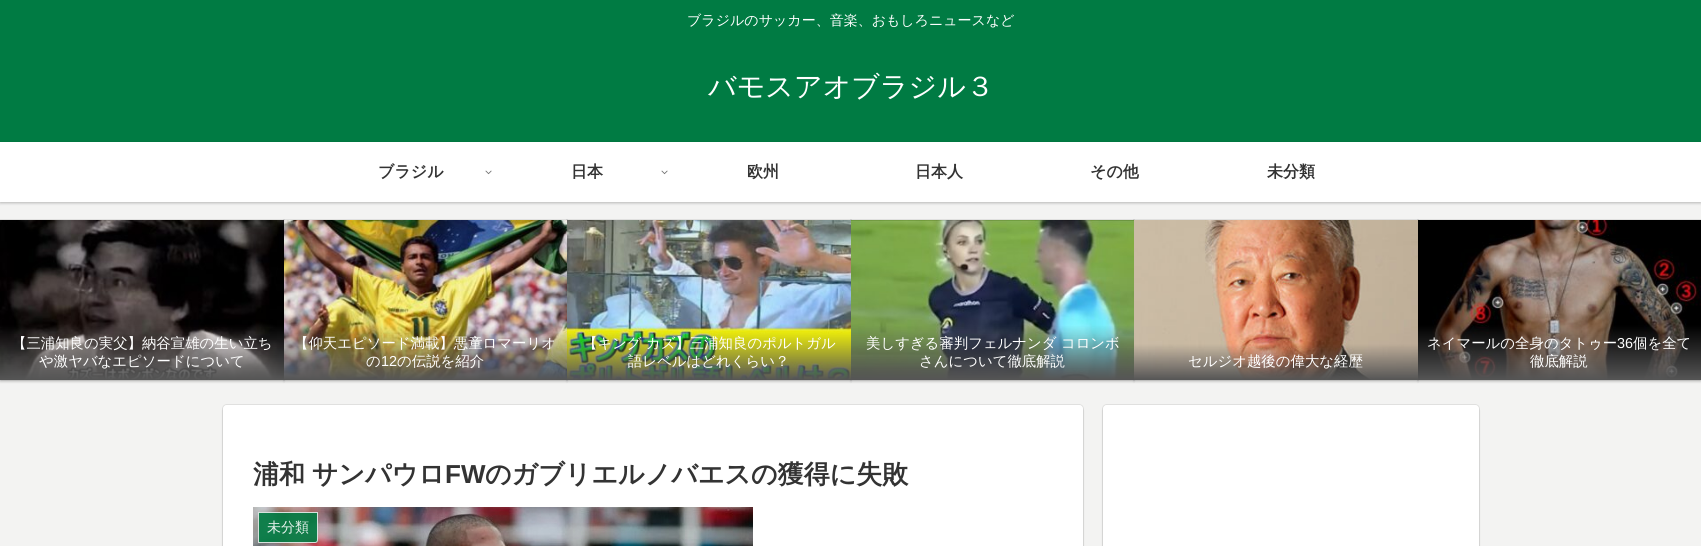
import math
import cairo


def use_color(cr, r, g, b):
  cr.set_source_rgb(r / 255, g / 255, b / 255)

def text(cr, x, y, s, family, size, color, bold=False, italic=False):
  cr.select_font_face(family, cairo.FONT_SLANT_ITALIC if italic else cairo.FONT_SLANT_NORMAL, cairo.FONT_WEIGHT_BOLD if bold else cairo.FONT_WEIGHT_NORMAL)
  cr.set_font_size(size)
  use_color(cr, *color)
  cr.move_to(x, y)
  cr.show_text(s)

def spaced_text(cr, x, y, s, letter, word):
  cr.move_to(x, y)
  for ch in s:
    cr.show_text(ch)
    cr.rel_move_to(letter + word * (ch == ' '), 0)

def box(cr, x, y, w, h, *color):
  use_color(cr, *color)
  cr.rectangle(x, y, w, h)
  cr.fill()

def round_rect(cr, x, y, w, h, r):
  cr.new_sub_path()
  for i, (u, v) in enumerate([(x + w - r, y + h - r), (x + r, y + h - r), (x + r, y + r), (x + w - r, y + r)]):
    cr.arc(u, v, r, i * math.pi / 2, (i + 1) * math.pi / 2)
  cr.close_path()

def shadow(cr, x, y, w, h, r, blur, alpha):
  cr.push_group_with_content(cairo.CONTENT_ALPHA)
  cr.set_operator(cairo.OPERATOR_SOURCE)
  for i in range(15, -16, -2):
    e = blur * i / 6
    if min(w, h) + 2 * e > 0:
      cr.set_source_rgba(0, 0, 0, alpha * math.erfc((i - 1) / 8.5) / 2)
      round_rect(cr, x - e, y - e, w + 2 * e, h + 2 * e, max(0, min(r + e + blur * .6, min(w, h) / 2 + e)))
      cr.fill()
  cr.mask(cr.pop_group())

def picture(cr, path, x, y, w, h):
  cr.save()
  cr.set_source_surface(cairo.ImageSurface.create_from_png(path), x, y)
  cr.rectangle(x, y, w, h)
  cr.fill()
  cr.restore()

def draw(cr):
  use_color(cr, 243, 243, 242)
  cr.paint()
  box(cr, 0, 142, 1701, 60, 255, 255, 255)
  box(cr, 0, 0, 1701, 142, 0, 123, 67)
  cr.save()
  cr.set_fill_rule(cairo.FILL_RULE_EVEN_ODD)
  cr.new_path()
  cr.move_to(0, 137)
  cr.line_to(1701, 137)
  cr.line_to(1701, 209)
  cr.line_to(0, 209)
  cr.close_path()
  cr.move_to(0, 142)
  cr.line_to(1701, 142)
  cr.line_to(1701, 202)
  cr.line_to(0, 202)
  cr.close_path()
  cr.clip()
  use_color(cr, 0, 0, 0)
  shadow(cr, 0, 143, 1701, 60, 0, 1.5, 0.25)
  cr.restore()
  picture(cr, "img_01.png", 485, 170, 7, 5)
  picture(cr, "img_01.png", 661, 170, 7, 5)
  cr.rectangle(-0.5, 219.5, 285, 161)
  use_color(cr, 224, 224, 223)
  cr.set_line_width(1)
  cr.stroke()
  use_color(cr, 0, 0, 0)
  shadow(cr, 0, 222, 284, 160, 0, 1, 0.16)
  cr.rectangle(283.5, 219.5, 284, 161)
  cr.set_source_rgba(0, 0, 0, 0.08)
  cr.stroke()
  use_color(cr, 0, 0, 0)
  shadow(cr, 284, 222, 283, 160, 0, 1, 0.16)
  picture(cr, "img_02.png", 0, 220, 284, 160)
  cr.rectangle(566.5, 219.5, 285, 161)
  cr.set_source_rgba(0, 0, 0, 0.08)
  cr.stroke()
  use_color(cr, 0, 0, 0)
  shadow(cr, 567, 222, 284, 160, 0, 1, 0.16)
  picture(cr, "img_03.png", 284, 220, 283, 160)
  cr.rectangle(850.5, 219.5, 284, 161)
  cr.set_source_rgba(0, 0, 0, 0.08)
  cr.stroke()
  use_color(cr, 0, 0, 0)
  shadow(cr, 851, 222, 283, 160, 0, 1, 0.16)
  picture(cr, "img_04.png", 567, 220, 284, 160)
  cr.rectangle(1133.5, 219.5, 285, 161)
  cr.set_source_rgba(0, 0, 0, 0.08)
  cr.stroke()
  use_color(cr, 0, 0, 0)
  shadow(cr, 1134, 222, 284, 160, 0, 1, 0.16)
  picture(cr, "img_05.png", 851, 220, 283, 160)
  cr.rectangle(1417.5, 219.5, 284, 161)
  cr.set_source_rgba(0, 0, 0, 0.08)
  cr.stroke()
  use_color(cr, 0, 0, 0)
  shadow(cr, 1418, 222, 283, 160, 0, 1, 0.16)
  picture(cr, "img_06.png", 1134, 220, 284, 160)
  picture(cr, "img_07.png", 1418, 220, 283, 160)
  round_rect(cr, 222.5, 404.5, 861, 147, 4.5)
  use_color(cr, 224, 224, 223)
  cr.stroke()
  use_color(cr, 0, 0, 0)
  shadow(cr, 223, 407, 860, 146, 4, 1, 0.16)
  use_color(cr, 255, 255, 255)
  round_rect(cr, 223, 405, 860, 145, 4)
  cr.fill()
  picture(cr, "img_08.png", 253, 507, 500, 39)
  cr.set_source_rgba(0, 0.482, 0.263, 0.9)
  cr.new_path()
  cr.move_to(258, 512)
  cr.line_to(318, 512)
  cr.line_to(318, 540)
  cr.curve_to(318, 541.5, 316.5, 543, 315, 543)
  cr.line_to(258, 543)
  cr.close_path()
  cr.fill()
  cr.new_path()
  cr.move_to(258.5, 512.5)
  cr.line_to(317.5, 512.5)
  cr.line_to(317.5, 540)
  cr.curve_to(317.5, 541.5, 316.5, 542.5, 315, 542.5)
  cr.line_to(258.5, 542.5)
  cr.close_path()
  cr.set_source_rgba(0.933, 0.933, 0.933, 0.9)
  cr.stroke()
  round_rect(cr, 1102.5, 404.5, 377, 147, 4.5)
  use_color(cr, 224, 224, 223)
  cr.stroke()
  use_color(cr, 0, 0, 0)
  shadow(cr, 1103, 407, 376, 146, 4, 1, 0.16)
  use_color(cr, 255, 255, 255)
  round_rect(cr, 1103, 405, 376, 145, 4)
  cr.fill()
  text(cr, 687, 25, "ブラジルのサッカー、音楽、おもしろニュースなど", "WenQuanYi Zen Hei Medium", 14, (255, 255, 255))
  text(cr, 708, 96, "バモスアオブラジル３", "WenQuanYi Zen Hei Medium", 28, (255, 255, 255))
  text(cr, 378, 177, "ブラジル", "WenQuanYi Zen Hei", 16, (51, 51, 51), bold=True)
  text(cr, 571, 177, "日本", "WenQuanYi Zen Hei", 16, (51, 51, 51), bold=True)
  text(cr, 747, 177, "欧州", "WenQuanYi Zen Hei", 16, (51, 51, 51), bold=True)
  text(cr, 915, 177, "日本人", "WenQuanYi Zen Hei", 16, (51, 51, 51), bold=True)
  text(cr, 1090, 177, "その他", "WenQuanYi Zen Hei", 16, (51, 51, 51), bold=True)
  text(cr, 1267, 177, "未分類", "WenQuanYi Zen Hei", 16, (51, 51, 51), bold=True)
  text(cr, 12, 348, "【三浦知良の実父】納谷宣雄の生い立ち", "WenQuanYi Zen Hei Medium", 14.4, (255, 255, 255))
  text(cr, 39, 366, "や激ヤバなエピソードについて", "WenQuanYi Zen Hei Medium", 14.4, (255, 255, 255))
  text(cr, 294, 348, "【仰天エピソード満載】悪童ロマーリオ", "WenQuanYi Zen Hei Medium", 14.4, (255, 255, 255))
  text(cr, 366, 366, "の", "WenQuanYi Zen Hei Medium", 14.4, (255, 255, 255))
  text(cr, 381, 366, "12", "Liberation Sans", 14.4, (255, 255, 255))
  text(cr, 397, 366, "の伝説を紹介", "WenQuanYi Zen Hei Medium", 14.4, (255, 255, 255))
  text(cr, 583, 348, "【キング カズ】三浦知良のポルトガル", "WenQuanYi Zen Hei Medium", 14.4, (255, 255, 255))
  text(cr, 628, 366, "語レベルはどれくらい？", "WenQuanYi Zen Hei Medium", 14.4, (255, 255, 255))
  text(cr, 866, 348, "美しすぎる審判フェルナンダ コロンボ", "WenQuanYi Zen Hei Medium", 14.4, (255, 255, 255))
  text(cr, 919, 366, "さんについて徹底解説", "WenQuanYi Zen Hei Medium", 14.4, (255, 255, 255))
  text(cr, 1188, 366, "セルジオ越後の偉大な経歴", "WenQuanYi Zen Hei Medium", 14.4, (255, 255, 255))
  text(cr, 1427, 348, "ネイマールの全身のタトゥー", "WenQuanYi Zen Hei Medium", 14.4, (255, 255, 255))
  text(cr, 1617, 348, "36", "Liberation Sans", 14.4, (255, 255, 255))
  text(cr, 1633, 348, "個を全て", "WenQuanYi Zen Hei Medium", 14.4, (255, 255, 255))
  text(cr, 1530, 366, "徹底解説", "WenQuanYi Zen Hei Medium", 14.4, (255, 255, 255))
  cr.select_font_face("WenQuanYi Zen Hei", cairo.FONT_SLANT_NORMAL, cairo.FONT_WEIGHT_BOLD)
  cr.set_font_size(26)
  use_color(cr, 51, 51, 51)
  spaced_text(cr, 253, 483, "浦和 サンパウロ", 0, -1)
  text(cr, 445, 483, "FW", "Liberation Sans", 26, (51, 51, 51), bold=True)
  text(cr, 485, 483, "のガブリエルノバエスの獲得に失敗", "WenQuanYi Zen Hei", 26, (51, 51, 51), bold=True)
  text(cr, 267, 532, "未分類", "WenQuanYi Zen Hei Medium", 14, (231, 242, 237))


surface = cairo.ImageSurface(cairo.FORMAT_RGB24, 1701, 546)
cr = cairo.Context(surface)
options = cairo.FontOptions()
options.set_hint_metrics(cairo.HINT_METRICS_OFF)
options.set_hint_style(cairo.HINT_STYLE_NONE)
cr.set_font_options(options)
cr.set_miter_limit(4)
draw(cr)
surface.write_to_png("out.png")
